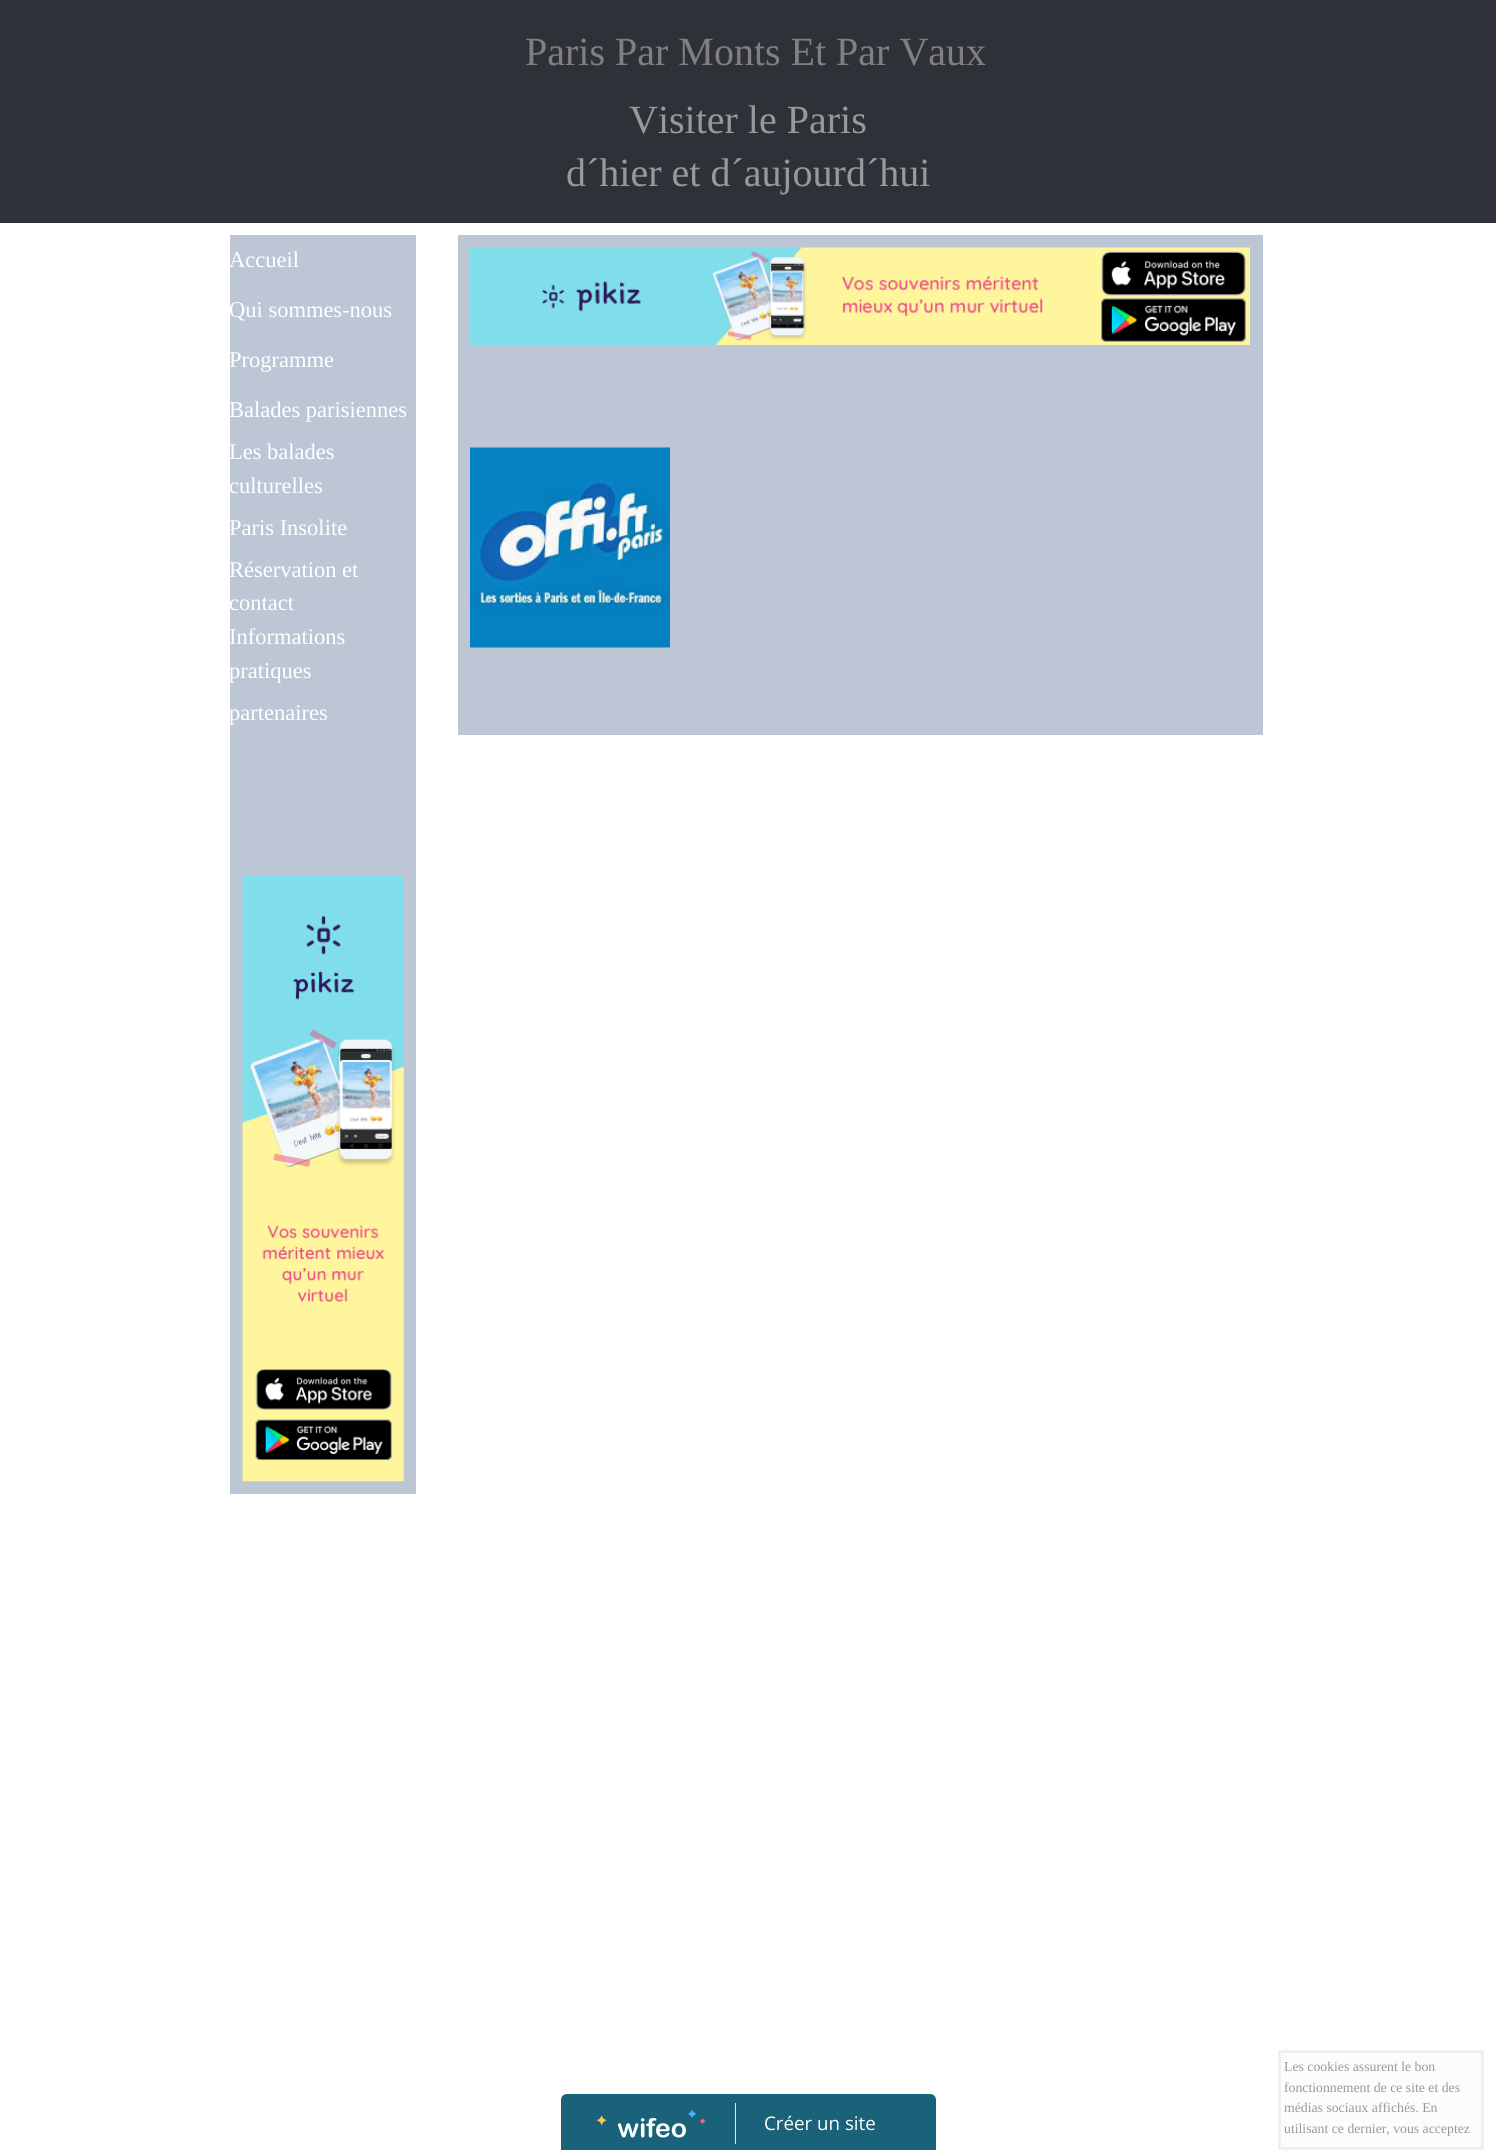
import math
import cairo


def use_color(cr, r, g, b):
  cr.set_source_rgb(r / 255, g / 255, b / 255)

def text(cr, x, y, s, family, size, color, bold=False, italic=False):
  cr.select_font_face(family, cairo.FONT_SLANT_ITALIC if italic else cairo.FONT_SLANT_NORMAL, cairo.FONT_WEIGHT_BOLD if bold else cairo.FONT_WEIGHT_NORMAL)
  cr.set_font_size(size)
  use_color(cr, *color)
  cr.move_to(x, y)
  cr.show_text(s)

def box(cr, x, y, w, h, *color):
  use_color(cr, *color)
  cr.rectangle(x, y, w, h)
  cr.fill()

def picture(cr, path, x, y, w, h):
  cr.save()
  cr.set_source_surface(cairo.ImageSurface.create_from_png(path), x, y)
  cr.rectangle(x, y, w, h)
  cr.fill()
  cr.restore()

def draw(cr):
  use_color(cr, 255, 255, 255)
  cr.paint()
  box(cr, 0, 0, 1496, 223, 46, 50, 56)
  box(cr, 230, 235, 186, 1259, 189, 198, 213)
  picture(cr, "img_01.png", 242, 875, 162, 607)
  box(cr, 458, 235, 805, 500, 189, 198, 213)
  picture(cr, "img_02.png", 470, 247, 780, 98)
  picture(cr, "img_03.png", 470, 447, 200, 201)
  use_color(cr, 26, 98, 122)
  cr.new_path()
  cr.move_to(567, 2094)
  cr.line_to(930, 2094)
  cr.curve_to(933.5, 2094, 936, 2096.5, 936, 2100)
  cr.line_to(936, 2150)
  cr.line_to(561, 2150)
  cr.line_to(561, 2100)
  cr.curve_to(561, 2096.5, 563.5, 2094, 567, 2094)
  cr.close_path()
  cr.fill()
  box(cr, 735, 2103, 1, 41, 231, 231, 231)
  picture(cr, "img_04.png", 597, 2110, 109, 28)
  use_color(cr, 252, 252, 252)
  cr.rectangle(1279.5, 2051.5, 203, 97)
  cr.fill_preserve()
  use_color(cr, 240, 240, 240)
  cr.set_line_width(3)
  cr.stroke()
  text(cr, 525, 65, "Paris Par Monts Et Par Vaux", "Liberation Serif", 40, (128, 128, 128))
  text(cr, 629, 133, "Visiter le Paris", "Liberation Serif", 40, (153, 153, 153))
  text(cr, 566, 186, "d´hier et d´aujourd´hui", "Liberation Serif", 40, (153, 153, 153))
  text(cr, 229, 267, "Accueil", "Liberation Serif", 22.5, (255, 255, 255))
  text(cr, 229, 317, "Qui sommes-nous", "Liberation Serif", 22.5, (255, 255, 255))
  text(cr, 229, 367, "Programme", "Liberation Serif", 22.5, (255, 255, 255))
  text(cr, 229, 417, "Balades parisiennes", "Liberation Serif", 22.5, (255, 255, 255))
  text(cr, 229, 459, "Les balades", "Liberation Serif", 22.5, (255, 255, 255))
  text(cr, 229, 493, "culturelles", "Liberation Serif", 22.5, (255, 255, 255))
  text(cr, 229, 535, "Paris Insolite", "Liberation Serif", 22.5, (255, 255, 255))
  text(cr, 229, 577, "Réservation et", "Liberation Serif", 22.5, (255, 255, 255))
  text(cr, 229, 610, "contact", "Liberation Serif", 22.5, (255, 255, 255))
  text(cr, 229, 644, "Informations", "Liberation Serif", 22.5, (255, 255, 255))
  text(cr, 229, 678, "pratiques", "Liberation Serif", 22.5, (255, 255, 255))
  text(cr, 229, 720, "partenaires", "Liberation Serif", 22.5, (255, 255, 255))
  text(cr, 764, 2130, "Créer un site", "Open Sans", 18.75, (255, 255, 255))
  text(cr, 1284, 2071, "Les cookies assurent le bon", "Liberation Serif", 13.75, (153, 153, 153))
  text(cr, 1284, 2092, "fonctionnement de ce site et des", "Liberation Serif", 13.75, (153, 153, 153))
  text(cr, 1284, 2112, "médias sociaux affichés. En", "Liberation Serif", 13.75, (153, 153, 153))
  text(cr, 1284, 2133, "utilisant ce dernier, vous acceptez", "Liberation Serif", 13.75, (153, 153, 153))


surface = cairo.ImageSurface(cairo.FORMAT_RGB24, 1496, 2150)
cr = cairo.Context(surface)
options = cairo.FontOptions()
options.set_hint_metrics(cairo.HINT_METRICS_OFF)
options.set_hint_style(cairo.HINT_STYLE_NONE)
cr.set_font_options(options)
cr.set_miter_limit(4)
draw(cr)
surface.write_to_png("out.png")
